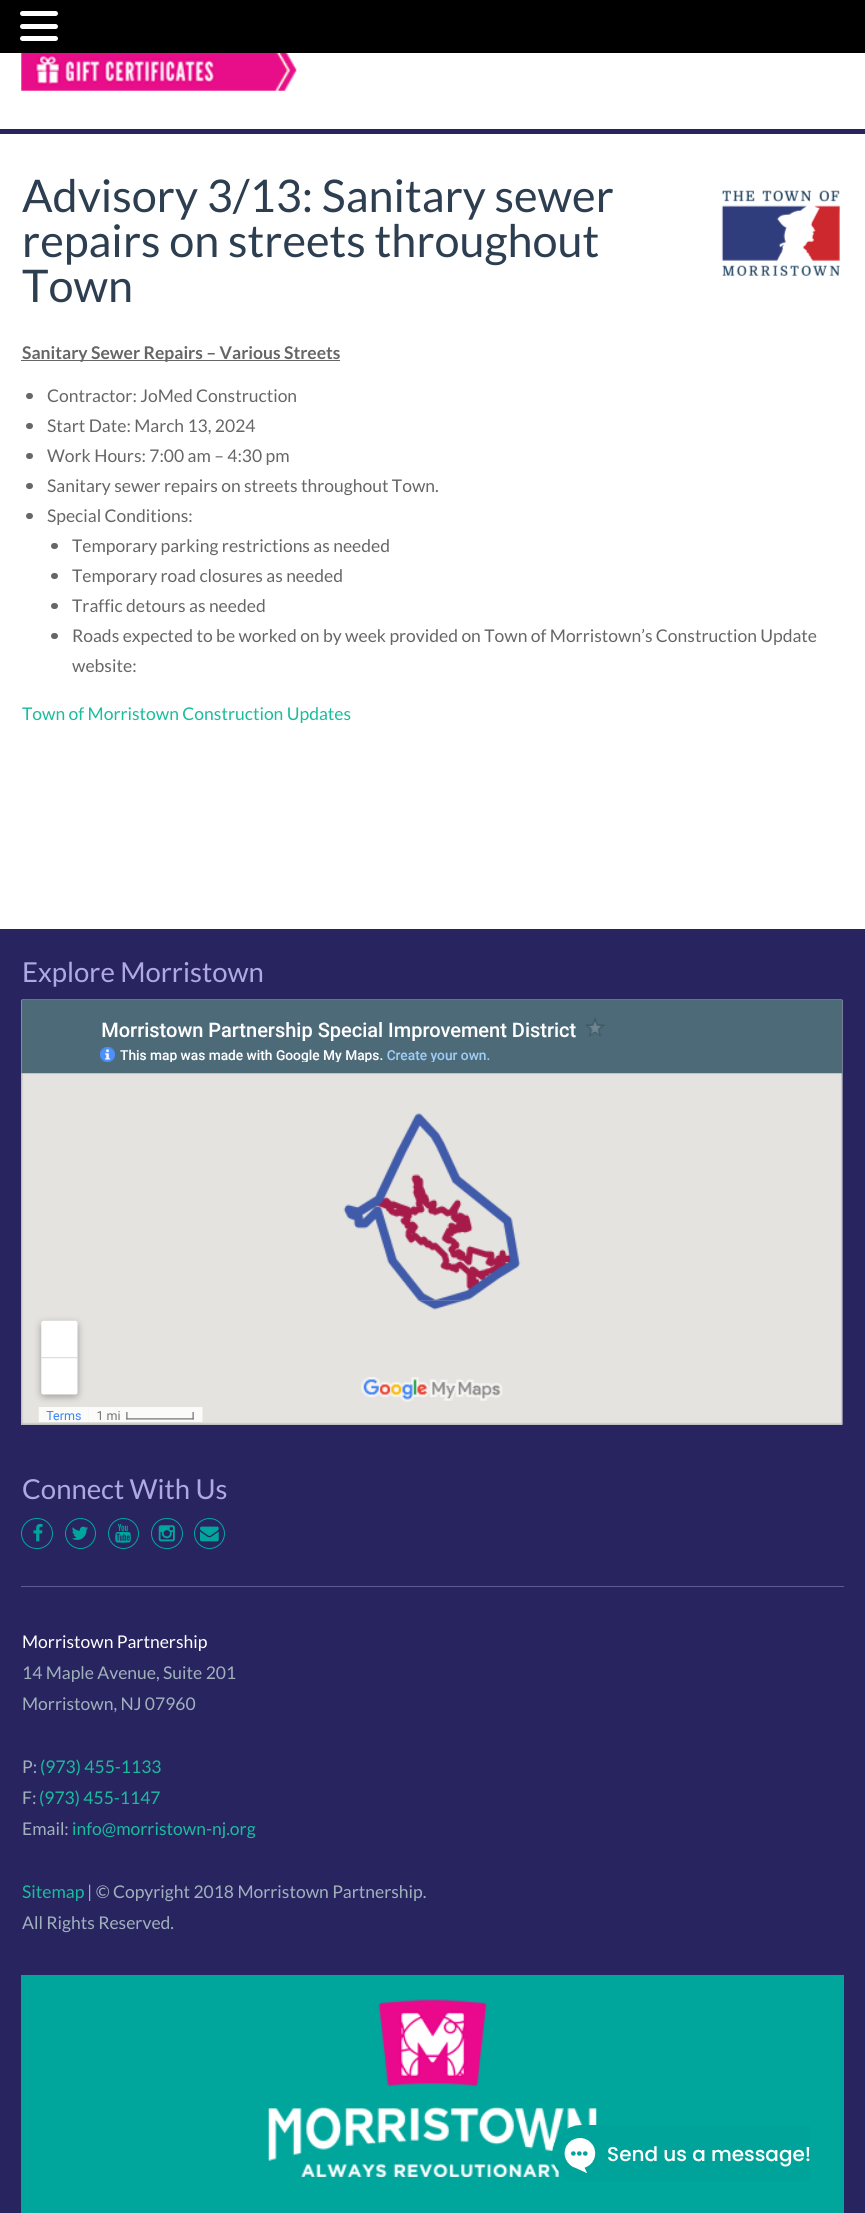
import math
import cairo


def use_color(cr, r, g, b):
  cr.set_source_rgb(r / 255, g / 255, b / 255)

def text(cr, x, y, s, family, size, color, bold=False, italic=False):
  cr.select_font_face(family, cairo.FONT_SLANT_ITALIC if italic else cairo.FONT_SLANT_NORMAL, cairo.FONT_WEIGHT_BOLD if bold else cairo.FONT_WEIGHT_NORMAL)
  cr.set_font_size(size)
  use_color(cr, *color)
  cr.move_to(x, y)
  cr.show_text(s)

def box(cr, x, y, w, h, *color):
  use_color(cr, *color)
  cr.rectangle(x, y, w, h)
  cr.fill()

def round_rect(cr, x, y, w, h, r):
  cr.new_sub_path()
  for i, (u, v) in enumerate([(x + w - r, y + h - r), (x + r, y + h - r), (x + r, y + r), (x + w - r, y + r)]):
    cr.arc(u, v, r, i * math.pi / 2, (i + 1) * math.pi / 2)
  cr.close_path()

def picture(cr, path, x, y, w, h):
  cr.save()
  cr.set_source_surface(cairo.ImageSurface.create_from_png(path), x, y)
  cr.rectangle(x, y, w, h)
  cr.fill()
  cr.restore()

def draw(cr):
  use_color(cr, 255, 255, 255)
  cr.paint()
  box(cr, 0, 0, 865, 53, 0, 0, 0)
  use_color(cr, 255, 255, 255)
  round_rect(cr, 20, 11, 38, 5, 2.5)
  cr.fill()
  round_rect(cr, 20, 24, 38, 5, 2.5)
  cr.fill()
  round_rect(cr, 20, 36, 38, 5, 2.5)
  cr.fill()
  box(cr, 0, 129, 865, 5, 40, 36, 96)
  picture(cr, "img_01.png", 21, 53, 276, 38)
  picture(cr, "img_02.png", 721, 190, 119, 86)
  box(cr, 21, 360, 319, 1, 102, 102, 102)
  round_rect(cr, 26, 393, 7, 6, 3)
  cr.fill()
  round_rect(cr, 26, 423, 7, 6, 3)
  cr.fill()
  round_rect(cr, 26, 453, 7, 6, 3)
  cr.fill()
  round_rect(cr, 26, 483, 7, 6, 3)
  cr.fill()
  round_rect(cr, 26, 513, 7, 6, 3)
  cr.fill()
  round_rect(cr, 51, 543, 7, 6, 3)
  cr.fill()
  round_rect(cr, 51, 573, 7, 6, 3)
  cr.fill()
  round_rect(cr, 51, 603, 7, 6, 3)
  cr.fill()
  round_rect(cr, 51, 633, 7, 6, 3)
  cr.fill()
  box(cr, 0, 929, 865, 1284, 40, 36, 96)
  picture(cr, "img_03.png", 21, 999, 822, 426)
  box(cr, 21, 1586, 823, 1, 95, 91, 149)
  round_rect(cr, 21.5, 1518.5, 31, 30, 15)
  use_color(cr, 0, 166, 156)
  cr.set_line_width(1)
  cr.stroke()
  picture(cr, "img_04.png", 33, 1523, 10, 19)
  cr.arc(80.5, 1533.5, 15, 0, 2 * math.pi)
  cr.stroke()
  picture(cr, "img_05.png", 72, 1526, 16, 14)
  cr.arc(123.5, 1533.5, 15, 0, 2 * math.pi)
  cr.stroke()
  picture(cr, "img_06.png", 115, 1523, 16, 20)
  round_rect(cr, 151.5, 1518.5, 31, 30, 15)
  cr.stroke()
  picture(cr, "img_07.png", 158, 1525, 17, 17)
  cr.arc(209.5, 1533.5, 15, 0, 2 * math.pi)
  cr.stroke()
  picture(cr, "img_08.png", 200, 1526, 19, 16)
  box(cr, 21, 1975, 823, 238, 0, 166, 156)
  picture(cr, "img_09.png", 268, 1999, 329, 178)
  picture(cr, "img_10.png", 552, 2125, 258, 56)
  text(cr, 22, 212, "Advisory 3/13: Sanitary sewer", "Lato", 45, (44, 62, 80))
  text(cr, 22, 257, "repairs on streets throughout", "Lato", 45, (44, 62, 80))
  text(cr, 22, 302, "Town", "Lato", 45, (44, 62, 80))
  text(cr, 22, 359, "Sanitary Sewer Repairs – Various Streets", "Lato", 17.5, (102, 102, 102), bold=True)
  text(cr, 47, 402, "Contractor: JoMed Construction", "Lato", 17.5, (102, 102, 102))
  text(cr, 47, 432, "Start Date: March 13, 2024", "Lato", 17.5, (102, 102, 102))
  text(cr, 47, 462, "Work Hours: 7:00 am – 4:30 pm", "Lato", 17.5, (102, 102, 102))
  text(cr, 47, 492, "Sanitary sewer repairs on streets throughout Town.", "Lato", 17.5, (102, 102, 102))
  text(cr, 47, 522, "Special Conditions:", "Lato", 17.5, (102, 102, 102))
  text(cr, 72, 552, "Temporary parking restrictions as needed", "Lato", 17.5, (102, 102, 102))
  text(cr, 72, 582, "Temporary road closures as needed", "Lato", 17.5, (102, 102, 102))
  text(cr, 72, 612, "Traffic detours as needed", "Lato", 17.5, (102, 102, 102))
  text(cr, 72, 642, "Roads expected to be worked on by week provided on Town of Morristown’s Construction Update", "Lato", 17.5, (102, 102, 102))
  text(cr, 72, 672, "website:", "Lato", 17.5, (102, 102, 102))
  text(cr, 22, 720, "Town of Morristown Construction Updates", "Lato", 17.5, (26, 188, 156))
  text(cr, 22, 982, "Explore Morristown", "Lato", 27.5, (174, 170, 225))
  text(cr, 22, 1499, "Connect With Us", "Lato", 27.5, (174, 170, 225))
  text(cr, 22, 1648, "Morristown Partnership", "Lato", 17.5, (255, 255, 255))
  text(cr, 22, 1679, "14 Maple Avenue, Suite 201", "Lato", 17.5, (161, 177, 188))
  text(cr, 22, 1710, "Morristown, NJ 07960", "Lato", 17.5, (161, 177, 188))
  text(cr, 22, 1773, "P:", "Lato", 17.5, (161, 177, 188))
  text(cr, 40, 1773, "(973) 455-1133", "Lato", 17.5, (26, 188, 156))
  text(cr, 22, 1804, "F:", "Lato", 17.5, (161, 177, 188))
  text(cr, 39, 1804, "(973) 455-1147", "Lato", 17.5, (26, 188, 156))
  text(cr, 22, 1835, "Email:", "Lato", 17.5, (161, 177, 188))
  text(cr, 72, 1835, "info@morristown-nj.org", "Lato", 17.5, (26, 188, 156))
  text(cr, 22, 1898, "Sitemap", "Lato", 17.5, (26, 188, 156))
  text(cr, 87, 1898, "| © Copyright 2018 Morristown Partnership.", "Lato", 17.5, (161, 177, 188))
  text(cr, 22, 1929, "All Rights Reserved.", "Lato", 17.5, (161, 177, 188))


surface = cairo.ImageSurface(cairo.FORMAT_RGB24, 865, 2213)
cr = cairo.Context(surface)
options = cairo.FontOptions()
options.set_hint_metrics(cairo.HINT_METRICS_OFF)
options.set_hint_style(cairo.HINT_STYLE_NONE)
cr.set_font_options(options)
cr.set_miter_limit(4)
draw(cr)
surface.write_to_png("out.png")
